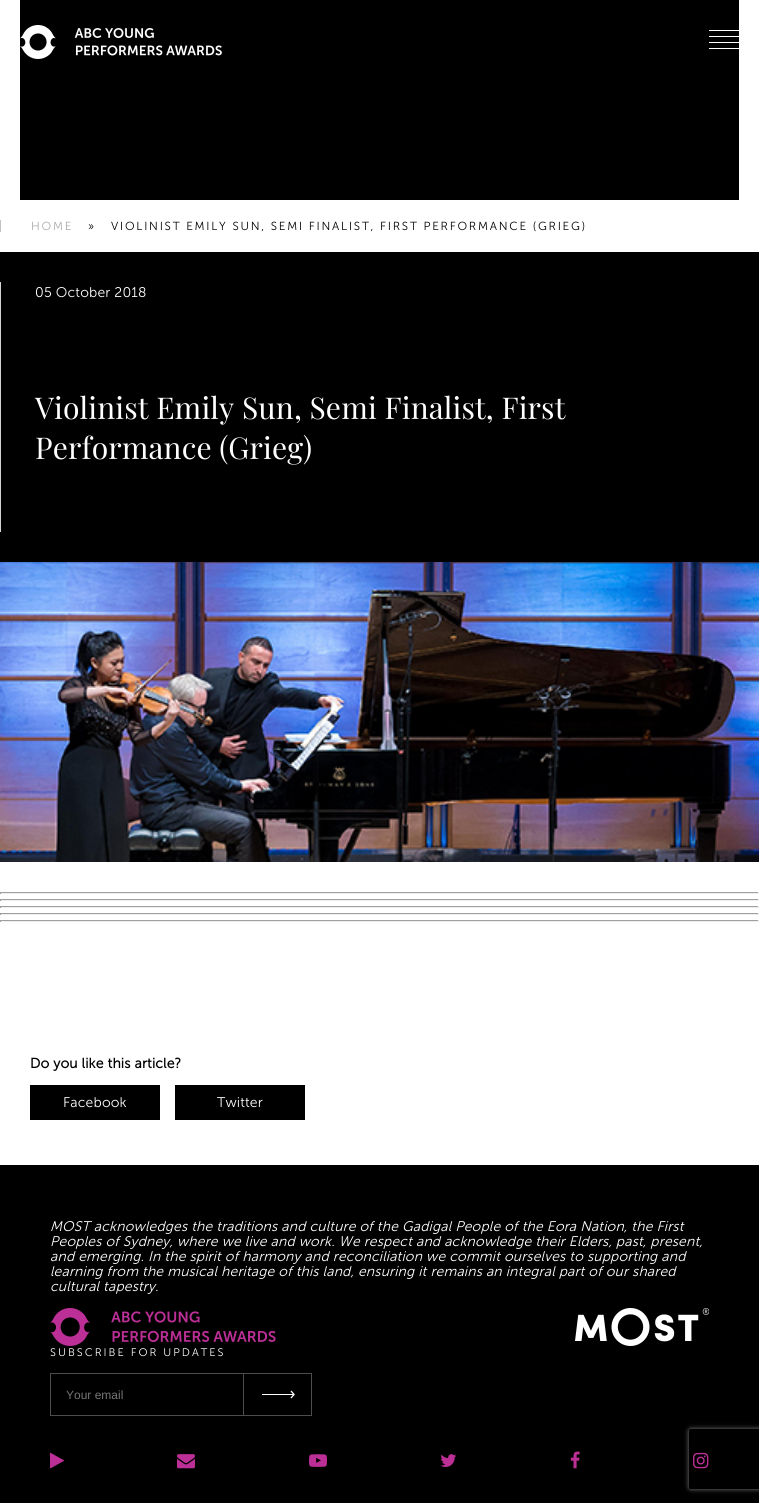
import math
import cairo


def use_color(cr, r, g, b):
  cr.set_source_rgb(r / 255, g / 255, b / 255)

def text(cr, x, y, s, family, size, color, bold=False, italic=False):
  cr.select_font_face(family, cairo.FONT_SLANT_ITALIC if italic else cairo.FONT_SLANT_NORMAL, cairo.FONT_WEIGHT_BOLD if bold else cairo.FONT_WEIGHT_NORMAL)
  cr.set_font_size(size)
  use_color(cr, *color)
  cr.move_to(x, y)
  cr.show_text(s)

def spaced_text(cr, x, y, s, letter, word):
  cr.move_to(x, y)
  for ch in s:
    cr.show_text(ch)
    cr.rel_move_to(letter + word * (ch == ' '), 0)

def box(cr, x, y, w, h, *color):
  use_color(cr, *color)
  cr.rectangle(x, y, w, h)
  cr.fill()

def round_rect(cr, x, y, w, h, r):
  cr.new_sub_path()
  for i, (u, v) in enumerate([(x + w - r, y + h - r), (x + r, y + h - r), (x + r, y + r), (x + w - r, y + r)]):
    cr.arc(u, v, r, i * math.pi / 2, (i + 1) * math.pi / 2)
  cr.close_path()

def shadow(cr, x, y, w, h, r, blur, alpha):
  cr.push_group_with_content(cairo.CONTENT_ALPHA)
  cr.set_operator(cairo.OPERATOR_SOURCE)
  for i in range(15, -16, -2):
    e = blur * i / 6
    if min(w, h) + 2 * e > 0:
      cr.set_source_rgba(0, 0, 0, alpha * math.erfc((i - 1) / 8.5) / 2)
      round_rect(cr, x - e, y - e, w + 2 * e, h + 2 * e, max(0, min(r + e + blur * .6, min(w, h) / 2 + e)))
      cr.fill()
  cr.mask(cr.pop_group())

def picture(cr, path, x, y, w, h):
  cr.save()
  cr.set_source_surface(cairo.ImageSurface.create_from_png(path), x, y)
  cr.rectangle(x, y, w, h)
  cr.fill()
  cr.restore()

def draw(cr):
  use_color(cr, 255, 255, 255)
  cr.paint()
  box(cr, 20, 0, 719, 200, 0, 0, 0)
  picture(cr, "img_01.png", 20, 25, 202, 34)
  box(cr, 709, 30, 30, 1, 255, 255, 255)
  box(cr, 709, 36, 30, 1, 255, 255, 255)
  box(cr, 709, 42, 30, 1, 255, 255, 255)
  box(cr, 709, 48, 30, 1, 255, 255, 255)
  box(cr, 0, 220, 1, 12, 195, 195, 195)
  box(cr, 0, 252, 759, 310, 0, 0, 0)
  box(cr, 0, 282, 1, 250, 209, 211, 212)
  picture(cr, "img_02.png", 0, 562, 759, 300)
  box(cr, 0, 892, 759, 1, 159, 159, 159)
  box(cr, 758, 892, 1, 2, 238, 238, 238)
  box(cr, 0, 893, 759, 1, 238, 238, 238)
  box(cr, 0, 892, 1, 2, 159, 159, 159)
  box(cr, 0, 899, 759, 1, 159, 159, 159)
  box(cr, 758, 899, 1, 2, 238, 238, 238)
  box(cr, 0, 900, 759, 1, 238, 238, 238)
  box(cr, 0, 899, 1, 2, 159, 159, 159)
  box(cr, 0, 906, 759, 1, 159, 159, 159)
  box(cr, 758, 906, 1, 2, 238, 238, 238)
  box(cr, 0, 907, 759, 1, 238, 238, 238)
  box(cr, 0, 906, 1, 2, 159, 159, 159)
  box(cr, 0, 913, 759, 1, 159, 159, 159)
  box(cr, 758, 913, 1, 2, 238, 238, 238)
  box(cr, 0, 914, 759, 1, 238, 238, 238)
  box(cr, 0, 913, 1, 2, 159, 159, 159)
  box(cr, 0, 920, 759, 1, 159, 159, 159)
  box(cr, 758, 920, 1, 2, 238, 238, 238)
  box(cr, 0, 921, 759, 1, 238, 238, 238)
  box(cr, 0, 920, 1, 2, 159, 159, 159)
  box(cr, 30, 1085, 130, 35, 0, 0, 0)
  box(cr, 175, 1085, 130, 35, 0, 0, 0)
  box(cr, 0, 1165, 759, 338, 0, 0, 0)
  picture(cr, "img_03.png", 50, 1308, 226, 38)
  picture(cr, "img_04.png", 575, 1308, 134, 38)
  cr.rectangle(50.5, 1373.5, 193, 42)
  use_color(cr, 77, 77, 77)
  cr.set_line_width(1)
  cr.stroke()
  box(cr, 244, 1373, 68, 1, 77, 77, 77)
  box(cr, 311, 1373, 1, 43, 77, 77, 77)
  box(cr, 244, 1415, 68, 1, 77, 77, 77)
  box(cr, 262, 1394, 32, 1, 255, 255, 255)
  cr.new_path()
  cr.move_to(291, 1391)
  cr.line_to(294, 1394.5)
  cr.line_to(291, 1398)
  cr.set_line_width(1.3)
  cr.stroke()
  picture(cr, "img_05.png", 50, 1452, 15, 17)
  picture(cr, "img_06.png", 177, 1454, 18, 15)
  picture(cr, "img_07.png", 309, 1454, 18, 13)
  picture(cr, "img_08.png", 440, 1454, 17, 13)
  picture(cr, "img_09.png", 570, 1451, 10, 18)
  cr.save()
  cr.set_fill_rule(cairo.FILL_RULE_EVEN_ODD)
  cr.new_path()
  cr.move_to(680, 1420)
  cr.line_to(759, 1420)
  cr.line_to(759, 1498)
  cr.line_to(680, 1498)
  cr.close_path()
  cr.move_to(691, 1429)
  cr.line_to(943, 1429)
  cr.curve_to(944, 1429, 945, 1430, 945, 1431)
  cr.line_to(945, 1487)
  cr.curve_to(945, 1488, 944, 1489, 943, 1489)
  cr.line_to(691, 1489)
  cr.curve_to(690, 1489, 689, 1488, 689, 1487)
  cr.line_to(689, 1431)
  cr.curve_to(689, 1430, 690, 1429, 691, 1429)
  cr.close_path()
  cr.clip()
  use_color(cr, 128, 128, 128)
  shadow(cr, 689, 1429, 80, 60, 2, 2.5, 1)
  cr.restore()
  picture(cr, "img_10.png", 693, 1452, 16, 17)
  cr.select_font_face("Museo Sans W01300 Light")
  cr.set_font_size(11.7)
  use_color(cr, 167, 169, 172)
  spaced_text(cr, 31, 230, "HOME", 1.75, 0)
  use_color(cr, 0, 0, 0)
  spaced_text(cr, 88, 230, "»", 1.75, 0)
  spaced_text(cr, 111, 230, "VIOLINIST EMILY SUN, SEMI FINALIST, FIRST PERFORMANCE (GRIEG)", 1.75, 0)
  cr.set_font_size(14)
  use_color(cr, 255, 255, 255)
  spaced_text(cr, 35, 297, "05 October 2018", 0.15, 0)
  cr.select_font_face("Playfair Display")
  cr.set_font_size(30)
  spaced_text(cr, 35, 419, "Violinist Emily Sun, Semi Finalist, First", 0.15, 0)
  spaced_text(cr, 35, 459, "Performance (Grieg)", 0.15, 0)
  cr.select_font_face("Museo Sans W01300", cairo.FONT_SLANT_NORMAL, cairo.FONT_WEIGHT_BOLD)
  cr.set_font_size(14)
  use_color(cr, 0, 0, 0)
  spaced_text(cr, 30, 1068, "Do you like this article?", 0.15, 0)
  cr.select_font_face("Museo Sans W01300 Light")
  use_color(cr, 255, 255, 255)
  spaced_text(cr, 63, 1107, "Facebook", 0.15, 0)
  spaced_text(cr, 217, 1107, "Twitter", 0.15, 0)
  cr.select_font_face("Museo Sans W01300 Light", cairo.FONT_SLANT_ITALIC)
  spaced_text(cr, 50, 1231, "MOST acknowledges the traditions and culture of the Gadigal People of the Eora Nation, the First", 0.15, 0)
  spaced_text(cr, 50, 1246, "Peoples of Sydney, where we live and work. We respect and acknowledge their Elders, past, present,", 0.15, 0)
  spaced_text(cr, 50, 1261, "and emerging. In the spirit of harmony and reconciliation we commit ourselves to supporting and", 0.15, 0)
  spaced_text(cr, 50, 1276, "learning from the musical heritage of this land, ensuring it remains an integral part of our shared", 0.15, 0)
  spaced_text(cr, 50, 1291, "cultural tapestry.", 0.15, 0)
  cr.select_font_face("Museo Sans W01300 Light")
  cr.set_font_size(11)
  spaced_text(cr, 50, 1356, "SUBSCRIBE FOR UPDATES", 2, 0)
  text(cr, 66, 1399, "Your email", "Liberation Sans", 12, (117, 117, 117))


surface = cairo.ImageSurface(cairo.FORMAT_RGB24, 759, 1503)
cr = cairo.Context(surface)
options = cairo.FontOptions()
options.set_hint_metrics(cairo.HINT_METRICS_OFF)
options.set_hint_style(cairo.HINT_STYLE_NONE)
cr.set_font_options(options)
cr.set_miter_limit(4)
draw(cr)
surface.write_to_png("out.png")
